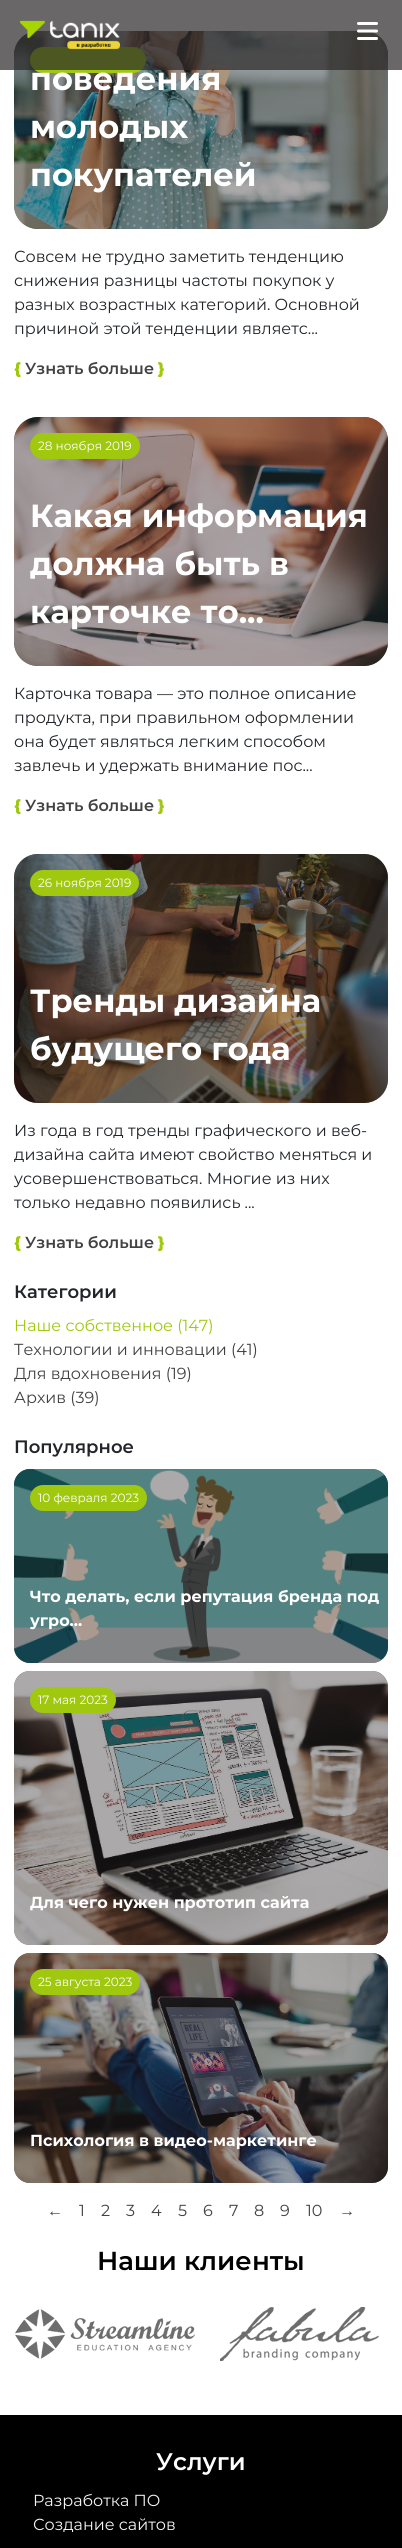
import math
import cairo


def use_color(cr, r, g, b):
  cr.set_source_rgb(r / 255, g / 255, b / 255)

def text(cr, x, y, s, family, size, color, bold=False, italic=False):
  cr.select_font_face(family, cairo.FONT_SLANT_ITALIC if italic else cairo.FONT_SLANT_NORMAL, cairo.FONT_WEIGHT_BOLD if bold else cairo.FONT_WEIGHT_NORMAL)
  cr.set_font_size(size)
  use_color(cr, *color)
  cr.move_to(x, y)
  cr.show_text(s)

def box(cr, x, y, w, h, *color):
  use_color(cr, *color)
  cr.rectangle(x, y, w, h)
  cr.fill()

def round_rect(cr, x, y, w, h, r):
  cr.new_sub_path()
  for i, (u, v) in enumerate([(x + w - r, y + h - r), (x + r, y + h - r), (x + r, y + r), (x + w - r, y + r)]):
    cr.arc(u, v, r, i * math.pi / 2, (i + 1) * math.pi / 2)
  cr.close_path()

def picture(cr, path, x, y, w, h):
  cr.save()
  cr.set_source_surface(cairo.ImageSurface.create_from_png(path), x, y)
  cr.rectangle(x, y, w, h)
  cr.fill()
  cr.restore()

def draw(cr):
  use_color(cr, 255, 255, 255)
  cr.paint()
  use_color(cr, 45, 41, 41)
  round_rect(cr, 14, 31, 374, 198, 24)
  cr.fill()
  picture(cr, "img_03.png", 14, 31, 374, 198)
  use_color(cr, 160, 200, 14)
  round_rect(cr, 30, 47, 116, 26, 13)
  cr.fill()
  cr.set_source_rgba(0.176, 0.161, 0.161, 0.71)
  cr.rectangle(0, 0, 402, 70)
  cr.fill()
  picture(cr, "img_01.png", 20, 20, 100, 30)
  picture(cr, "img_02.png", 357, 22, 21, 18)
  use_color(cr, 45, 41, 41)
  round_rect(cr, 14, 417, 374, 249, 24)
  cr.fill()
  picture(cr, "img_04.png", 14, 417, 374, 249)
  use_color(cr, 160, 200, 14)
  round_rect(cr, 30, 433, 110, 26, 13)
  cr.fill()
  use_color(cr, 45, 41, 41)
  round_rect(cr, 14, 854, 374, 249, 24)
  cr.fill()
  picture(cr, "img_05.png", 14, 854, 374, 249)
  use_color(cr, 160, 200, 14)
  round_rect(cr, 30, 870, 109, 26, 13)
  cr.fill()
  use_color(cr, 45, 41, 41)
  round_rect(cr, 14, 1469, 374, 194, 16)
  cr.fill()
  picture(cr, "img_06.png", 14, 1469, 374, 194)
  use_color(cr, 160, 200, 14)
  round_rect(cr, 30, 1485, 117, 26, 13)
  cr.fill()
  use_color(cr, 45, 41, 41)
  round_rect(cr, 14, 1671, 374, 274, 16)
  cr.fill()
  picture(cr, "img_07.png", 14, 1671, 374, 274)
  use_color(cr, 160, 200, 14)
  round_rect(cr, 30, 1687, 86, 26, 13)
  cr.fill()
  use_color(cr, 45, 41, 41)
  round_rect(cr, 14, 1953, 374, 230, 16)
  cr.fill()
  picture(cr, "img_08.png", 14, 1953, 374, 230)
  use_color(cr, 160, 200, 14)
  round_rect(cr, 30, 1969, 110, 26, 13)
  cr.fill()
  picture(cr, "img_09.png", 15, 2309, 180, 50)
  picture(cr, "img_10.png", 220, 2307, 159, 54)
  box(cr, 0, 2415, 402, 133, 0, 0, 0)
  text(cr, 30, 90, "поведения", "Montserrat", 32, (255, 255, 255), bold=True)
  text(cr, 30, 138, "молодых", "Montserrat", 32, (255, 255, 255), bold=True)
  text(cr, 30, 186, "покупателей", "Montserrat", 32, (255, 255, 255), bold=True)
  text(cr, 14, 262, "Совсем не трудно заметить тенденцию", "Montserrat", 16, (33, 37, 41))
  text(cr, 14, 286, "снижения разницы частоты покупок у", "Montserrat", 16, (33, 37, 41))
  text(cr, 14, 310, "разных возрастных категорий. Основной", "Montserrat", 16, (33, 37, 41))
  text(cr, 14, 334, "причиной этой тенденции являетс...", "Montserrat", 16, (33, 37, 41))
  text(cr, 14, 374, "{", "Montserrat ExtraBold", 16, (160, 200, 14))
  text(cr, 25, 374, "Узнать больше", "Montserrat SemiBold", 16, (66, 66, 66))
  text(cr, 158, 374, "}", "Montserrat ExtraBold", 16, (160, 200, 14))
  text(cr, 38, 450, "28 ноября 2019", "Montserrat", 12, (255, 255, 255))
  text(cr, 30, 527, "Какая информация", "Montserrat", 32, (255, 255, 255), bold=True)
  text(cr, 30, 575, "должна быть в", "Montserrat", 32, (255, 255, 255), bold=True)
  text(cr, 30, 623, "карточке то...", "Montserrat", 32, (255, 255, 255), bold=True)
  text(cr, 14, 699, "Карточка товара — это полное описание", "Montserrat", 16, (33, 37, 41))
  text(cr, 14, 723, "продукта, при правильном оформлении", "Montserrat", 16, (33, 37, 41))
  text(cr, 14, 747, "она будет являться легким способом", "Montserrat", 16, (33, 37, 41))
  text(cr, 14, 771, "завлечь и удержать внимание пос...", "Montserrat", 16, (33, 37, 41))
  text(cr, 14, 811, "{", "Montserrat ExtraBold", 16, (160, 200, 14))
  text(cr, 25, 811, "Узнать больше", "Montserrat SemiBold", 16, (66, 66, 66))
  text(cr, 158, 811, "}", "Montserrat ExtraBold", 16, (160, 200, 14))
  text(cr, 38, 887, "26 ноября 2019", "Montserrat", 12, (255, 255, 255))
  text(cr, 30, 1012, "Тренды дизайна", "Montserrat", 32, (255, 255, 255), bold=True)
  text(cr, 30, 1060, "будущего года", "Montserrat", 32, (255, 255, 255), bold=True)
  text(cr, 14, 1136, "Из года в год тренды графического и веб-", "Montserrat", 16, (33, 37, 41))
  text(cr, 14, 1160, "дизайна сайта имеют свойство меняться и", "Montserrat", 16, (33, 37, 41))
  text(cr, 14, 1184, "усовершенствоваться. Многие из них", "Montserrat", 16, (33, 37, 41))
  text(cr, 14, 1208, "только недавно появились ...", "Montserrat", 16, (33, 37, 41))
  text(cr, 14, 1248, "{", "Montserrat ExtraBold", 16, (160, 200, 14))
  text(cr, 25, 1248, "Узнать больше", "Montserrat SemiBold", 16, (66, 66, 66))
  text(cr, 158, 1248, "}", "Montserrat ExtraBold", 16, (160, 200, 14))
  text(cr, 14, 1298, "Категории", "Montserrat SemiBold", 18, (33, 37, 41))
  text(cr, 14, 1331, "Наше собственное (147)", "Montserrat", 16, (160, 200, 14))
  text(cr, 14, 1355, "Технологии и инновации (41)", "Montserrat", 16, (66, 66, 66))
  text(cr, 14, 1379, "Для вдохновения (19)", "Montserrat", 16, (66, 66, 66))
  text(cr, 14, 1403, "Архив (39)", "Montserrat", 16, (66, 66, 66))
  text(cr, 14, 1453, "Популярное", "Montserrat SemiBold", 18, (33, 37, 41))
  text(cr, 38, 1502, "10 февраля 2023", "Montserrat", 12, (255, 255, 255))
  text(cr, 30, 1602, "Что делать, если репутация бренда под", "Montserrat", 16, (255, 255, 255), bold=True)
  text(cr, 30, 1626, "угро...", "Montserrat", 16, (255, 255, 255), bold=True)
  text(cr, 38, 1704, "17 мая 2023", "Montserrat", 12, (255, 255, 255))
  text(cr, 30, 1908, "Для чего нужен прототип сайта", "Montserrat", 16, (255, 255, 255), bold=True)
  text(cr, 38, 1986, "25 августа 2023", "Montserrat", 12, (255, 255, 255))
  text(cr, 30, 2146, "Психология в видео-маркетинге", "Montserrat", 16, (255, 255, 255), bold=True)
  text(cr, 47, 2216, "←", "Liberation Sans", 16, (66, 66, 66))
  text(cr, 79, 2216, "1", "Montserrat", 16, (66, 66, 66))
  text(cr, 101, 2216, "2", "Montserrat", 16, (66, 66, 66))
  text(cr, 126, 2216, "3", "Montserrat", 16, (66, 66, 66))
  text(cr, 151, 2216, "4", "Montserrat", 16, (66, 66, 66))
  text(cr, 178, 2216, "5", "Montserrat", 16, (66, 66, 66))
  text(cr, 203, 2216, "6", "Montserrat", 16, (66, 66, 66))
  text(cr, 229, 2216, "7", "Montserrat", 16, (66, 66, 66))
  text(cr, 254, 2216, "8", "Montserrat", 16, (66, 66, 66))
  text(cr, 280, 2216, "9", "Montserrat", 16, (66, 66, 66))
  text(cr, 306, 2216, "10", "Montserrat", 16, (66, 66, 66))
  text(cr, 339, 2216, "→", "Liberation Sans", 16, (66, 66, 66))
  text(cr, 97, 2270, "Наши клиенты", "Montserrat SemiBold", 26, (0, 0, 0))
  text(cr, 156, 2470, "Услуги", "Montserrat SemiBold", 24, (255, 255, 255))
  text(cr, 33, 2506, "Разработка ПО", "Montserrat", 16, (244, 244, 244))
  text(cr, 33, 2530, "Создание сайтов", "Montserrat", 16, (244, 244, 244))


surface = cairo.ImageSurface(cairo.FORMAT_RGB24, 402, 2548)
cr = cairo.Context(surface)
options = cairo.FontOptions()
options.set_hint_metrics(cairo.HINT_METRICS_OFF)
options.set_hint_style(cairo.HINT_STYLE_NONE)
cr.set_font_options(options)
cr.set_miter_limit(4)
draw(cr)
surface.write_to_png("out.png")
